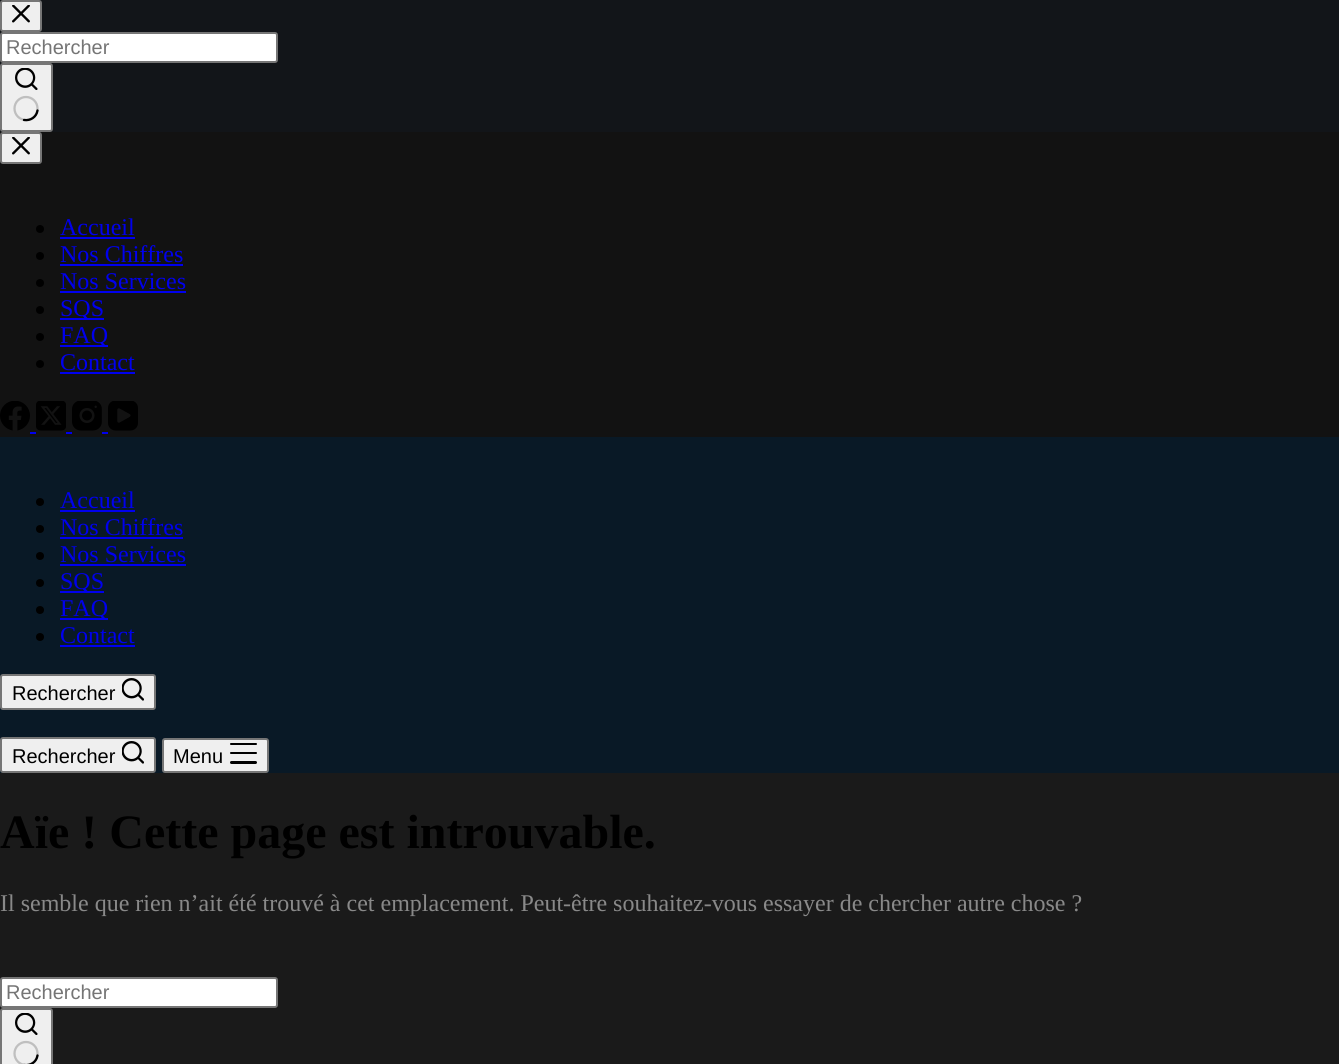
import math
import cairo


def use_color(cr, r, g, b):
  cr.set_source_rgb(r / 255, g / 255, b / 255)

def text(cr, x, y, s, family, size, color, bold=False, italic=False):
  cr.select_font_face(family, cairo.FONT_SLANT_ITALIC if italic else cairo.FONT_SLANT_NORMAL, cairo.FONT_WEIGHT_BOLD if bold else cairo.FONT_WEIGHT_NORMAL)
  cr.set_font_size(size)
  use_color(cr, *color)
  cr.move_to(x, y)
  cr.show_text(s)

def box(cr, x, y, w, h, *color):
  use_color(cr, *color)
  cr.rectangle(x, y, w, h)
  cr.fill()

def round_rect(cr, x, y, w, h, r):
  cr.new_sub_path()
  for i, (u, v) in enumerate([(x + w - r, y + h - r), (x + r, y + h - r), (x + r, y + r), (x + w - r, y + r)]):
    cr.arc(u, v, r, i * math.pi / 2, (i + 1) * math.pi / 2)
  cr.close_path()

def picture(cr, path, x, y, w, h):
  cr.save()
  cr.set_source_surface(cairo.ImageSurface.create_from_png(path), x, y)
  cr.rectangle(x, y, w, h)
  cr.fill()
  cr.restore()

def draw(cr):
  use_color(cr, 26, 26, 26)
  cr.paint()
  box(cr, 0, 0, 1339, 132, 18, 21, 25)
  use_color(cr, 239, 239, 239)
  round_rect(cr, 1, 1, 40, 30, 2)
  cr.fill_preserve()
  use_color(cr, 118, 118, 118)
  cr.stroke()
  picture(cr, "img_01.png", 12, 5, 18, 18)
  use_color(cr, 255, 255, 255)
  round_rect(cr, 1, 33, 276, 29, 2)
  cr.fill_preserve()
  use_color(cr, 118, 118, 118)
  cr.stroke()
  use_color(cr, 239, 239, 239)
  round_rect(cr, 1, 64, 51, 67, 2)
  cr.fill_preserve()
  use_color(cr, 118, 118, 118)
  cr.stroke()
  picture(cr, "img_02.png", 15, 68, 23, 22)
  cr.arc(26, 108.5, 11.5, 0, 2 * math.pi)
  use_color(cr, 191, 191, 191)
  cr.set_line_width(2.3)
  cr.stroke()
  cr.new_path()
  cr.move_to(37.5, 110.5)
  cr.curve_to(36.5, 117, 30.5, 121, 24, 120)
  use_color(cr, 0, 0, 0)
  cr.set_line_cap(cairo.LINE_CAP_ROUND)
  cr.stroke()
  box(cr, 0, 132, 1339, 305, 18, 18, 18)
  use_color(cr, 239, 239, 239)
  round_rect(cr, 1, 133, 40, 30, 2)
  cr.fill_preserve()
  use_color(cr, 118, 118, 118)
  cr.set_line_width(2)
  cr.set_line_cap(cairo.LINE_CAP_BUTT)
  cr.stroke()
  picture(cr, "img_01.png", 12, 137, 18, 18)
  use_color(cr, 0, 0, 0)
  cr.arc(40, 229, 4, 0, 2 * math.pi)
  cr.fill()
  box(cr, 60, 237, 75, 2, 0, 0, 238)
  use_color(cr, 0, 0, 0)
  cr.arc(40, 256, 4, 0, 2 * math.pi)
  cr.fill()
  box(cr, 60, 264, 123, 2, 0, 0, 238)
  use_color(cr, 0, 0, 0)
  cr.arc(40, 283, 4, 0, 2 * math.pi)
  cr.fill()
  box(cr, 60, 291, 126, 2, 0, 0, 238)
  use_color(cr, 0, 0, 0)
  cr.arc(40, 310, 4, 0, 2 * math.pi)
  cr.fill()
  box(cr, 60, 318, 44, 2, 0, 0, 238)
  use_color(cr, 0, 0, 0)
  cr.arc(40, 337, 4, 0, 2 * math.pi)
  cr.fill()
  box(cr, 60, 345, 48, 2, 0, 0, 238)
  use_color(cr, 0, 0, 0)
  cr.arc(40, 364, 4, 0, 2 * math.pi)
  cr.fill()
  box(cr, 60, 372, 75, 2, 0, 0, 238)
  picture(cr, "img_03.png", 0, 401, 30, 30)
  picture(cr, "img_04.png", 36, 401, 30, 30)
  picture(cr, "img_05.png", 72, 401, 30, 30)
  picture(cr, "img_06.png", 108, 401, 30, 30)
  box(cr, 30, 432, 6, 2, 0, 0, 238)
  box(cr, 66, 432, 6, 2, 0, 0, 238)
  box(cr, 102, 432, 6, 2, 0, 0, 238)
  box(cr, 0, 437, 1339, 336, 9, 25, 38)
  use_color(cr, 0, 0, 0)
  cr.arc(40, 502, 4, 0, 2 * math.pi)
  cr.fill()
  box(cr, 60, 510, 75, 2, 0, 0, 238)
  use_color(cr, 0, 0, 0)
  cr.arc(40, 529, 4, 0, 2 * math.pi)
  cr.fill()
  box(cr, 60, 537, 123, 2, 0, 0, 238)
  use_color(cr, 0, 0, 0)
  cr.arc(40, 556, 4, 0, 2 * math.pi)
  cr.fill()
  box(cr, 60, 564, 126, 2, 0, 0, 238)
  use_color(cr, 0, 0, 0)
  cr.arc(40, 583, 4, 0, 2 * math.pi)
  cr.fill()
  box(cr, 60, 591, 44, 2, 0, 0, 238)
  use_color(cr, 0, 0, 0)
  cr.arc(40, 610, 4, 0, 2 * math.pi)
  cr.fill()
  box(cr, 60, 618, 48, 2, 0, 0, 238)
  use_color(cr, 0, 0, 0)
  cr.arc(40, 637, 4, 0, 2 * math.pi)
  cr.fill()
  box(cr, 60, 645, 75, 2, 0, 0, 238)
  use_color(cr, 239, 239, 239)
  round_rect(cr, 1, 675, 154, 34, 2)
  cr.fill_preserve()
  use_color(cr, 118, 118, 118)
  cr.stroke()
  picture(cr, "img_07.png", 122, 678, 22, 23)
  use_color(cr, 239, 239, 239)
  round_rect(cr, 1, 738, 154, 34, 2)
  cr.fill_preserve()
  use_color(cr, 118, 118, 118)
  cr.stroke()
  picture(cr, "img_07.png", 122, 741, 22, 23)
  use_color(cr, 239, 239, 239)
  round_rect(cr, 163, 739, 105, 33, 2)
  cr.fill_preserve()
  use_color(cr, 118, 118, 118)
  cr.stroke()
  use_color(cr, 0, 0, 0)
  round_rect(cr, 230, 743, 27, 2, 1)
  cr.fill()
  round_rect(cr, 230, 752, 27, 2, 1)
  cr.fill()
  round_rect(cr, 230, 761, 27, 3, 1.5)
  cr.fill()
  use_color(cr, 255, 255, 255)
  round_rect(cr, 1, 978, 276, 29, 2)
  cr.fill_preserve()
  use_color(cr, 118, 118, 118)
  cr.stroke()
  use_color(cr, 239, 239, 239)
  round_rect(cr, 1, 1009, 51, 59, 2)
  cr.fill_preserve()
  use_color(cr, 118, 118, 118)
  cr.stroke()
  picture(cr, "img_02.png", 15, 1013, 23, 22)
  cr.arc(26, 1053.5, 11.5, 0, 2 * math.pi)
  use_color(cr, 191, 191, 191)
  cr.set_line_width(2.3)
  cr.stroke()
  cr.new_path()
  cr.move_to(37.5, 1055.5)
  cr.curve_to(36.5, 1062, 30.5, 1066, 24, 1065)
  use_color(cr, 0, 0, 0)
  cr.set_line_cap(cairo.LINE_CAP_ROUND)
  cr.stroke()
  text(cr, 6, 54, "Rechercher", "Liberation Sans", 20, (117, 117, 117))
  text(cr, 60, 235, "Accueil", "Liberation Serif", 24, (0, 0, 238))
  text(cr, 60, 262, "Nos Chiffres", "Liberation Serif", 24, (0, 0, 238))
  text(cr, 60, 289, "Nos Services", "Liberation Serif", 24, (0, 0, 238))
  text(cr, 60, 316, "SQS", "Liberation Serif", 24, (0, 0, 238))
  text(cr, 60, 343, "FAQ", "Liberation Serif", 24, (0, 0, 238))
  text(cr, 60, 370, "Contact", "Liberation Serif", 24, (0, 0, 238))
  text(cr, 60, 508, "Accueil", "Liberation Serif", 24, (0, 0, 238))
  text(cr, 60, 535, "Nos Chiffres", "Liberation Serif", 24, (0, 0, 238))
  text(cr, 60, 562, "Nos Services", "Liberation Serif", 24, (0, 0, 238))
  text(cr, 60, 589, "SQS", "Liberation Serif", 24, (0, 0, 238))
  text(cr, 60, 616, "FAQ", "Liberation Serif", 24, (0, 0, 238))
  text(cr, 60, 643, "Contact", "Liberation Serif", 24, (0, 0, 238))
  text(cr, 12, 700, "Rechercher", "Liberation Sans", 20, (0, 0, 0))
  text(cr, 12, 763, "Rechercher", "Liberation Sans", 20, (0, 0, 0))
  text(cr, 173, 763, "Menu", "Liberation Sans", 20, (0, 0, 0))
  text(cr, 0, 848, "Aïe ! Cette page est introuvable.", "Liberation Serif", 48, (0, 0, 0), bold=True)
  text(cr, 0, 911, "Il semble que rien n’ait été trouvé à cet emplacement. Peut-être souhaitez-vous essayer de chercher autre chose ?", "Liberation Serif", 24, (137, 137, 137))
  text(cr, 6, 999, "Rechercher", "Liberation Sans", 20, (117, 117, 117))


surface = cairo.ImageSurface(cairo.FORMAT_RGB24, 1339, 1064)
cr = cairo.Context(surface)
options = cairo.FontOptions()
options.set_hint_metrics(cairo.HINT_METRICS_OFF)
options.set_hint_style(cairo.HINT_STYLE_NONE)
cr.set_font_options(options)
cr.set_miter_limit(4)
draw(cr)
surface.write_to_png("out.png")
